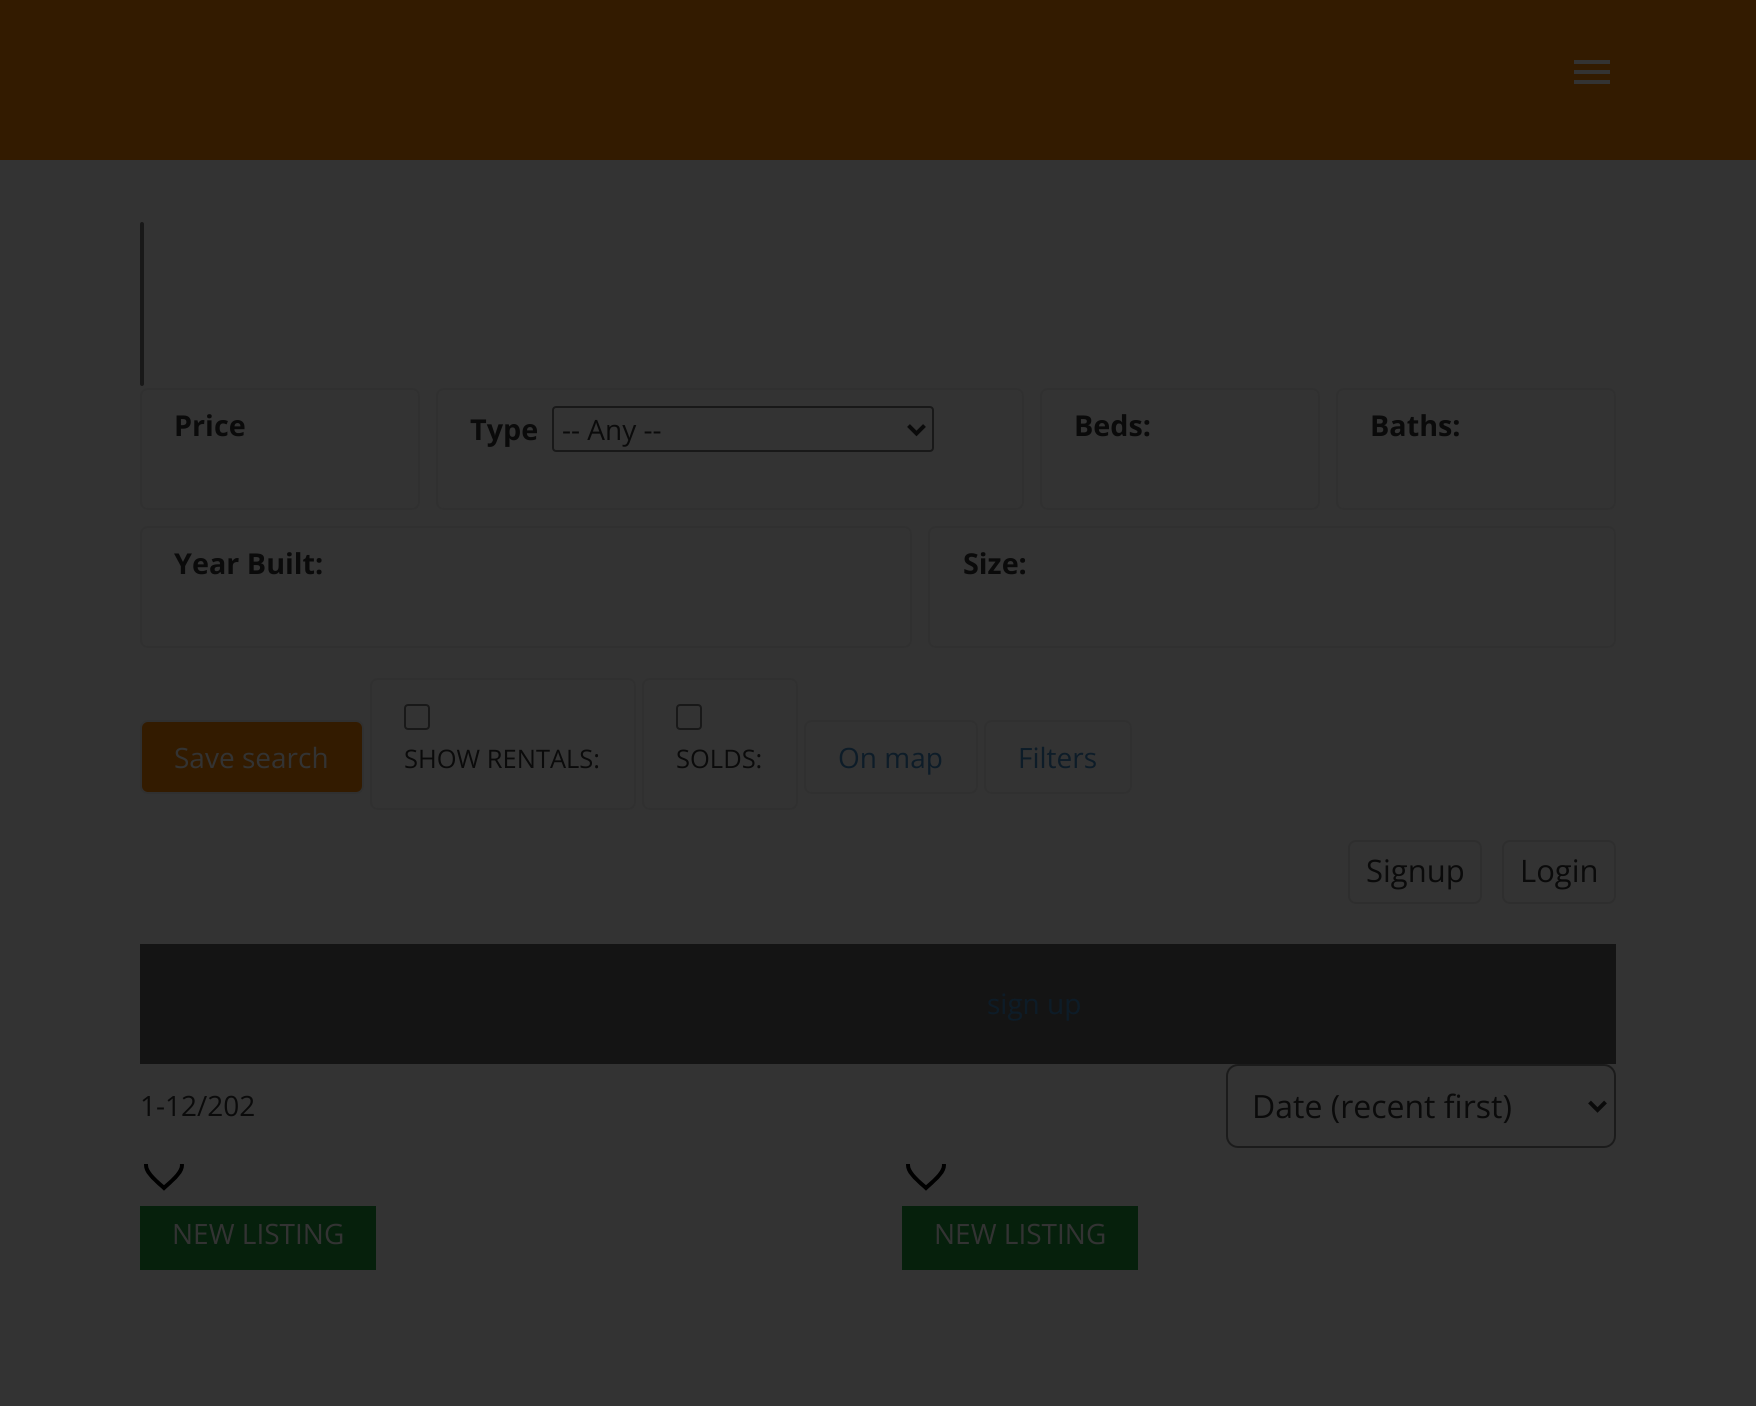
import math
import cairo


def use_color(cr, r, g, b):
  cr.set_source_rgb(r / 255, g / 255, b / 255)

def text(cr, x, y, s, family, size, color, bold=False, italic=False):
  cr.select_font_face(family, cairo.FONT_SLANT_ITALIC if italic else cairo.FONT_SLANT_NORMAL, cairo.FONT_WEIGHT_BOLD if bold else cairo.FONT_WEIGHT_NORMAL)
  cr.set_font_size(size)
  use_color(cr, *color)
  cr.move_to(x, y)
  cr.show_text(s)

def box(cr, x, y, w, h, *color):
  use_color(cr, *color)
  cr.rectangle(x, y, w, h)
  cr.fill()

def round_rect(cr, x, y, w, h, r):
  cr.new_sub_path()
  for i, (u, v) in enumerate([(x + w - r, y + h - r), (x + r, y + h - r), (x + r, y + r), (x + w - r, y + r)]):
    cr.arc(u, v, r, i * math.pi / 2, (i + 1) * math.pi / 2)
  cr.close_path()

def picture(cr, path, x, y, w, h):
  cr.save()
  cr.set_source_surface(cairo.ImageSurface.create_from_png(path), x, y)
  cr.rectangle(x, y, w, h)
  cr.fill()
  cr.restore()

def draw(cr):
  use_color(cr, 51, 51, 51)
  cr.paint()
  box(cr, 0, 0, 1756, 160, 51, 27, 0)
  use_color(cr, 51, 51, 51)
  cr.new_path()
  cr.move_to(1574, 84)
  cr.line_to(1610, 84)
  cr.line_to(1610, 80)
  cr.line_to(1574, 80)
  cr.close_path()
  cr.move_to(1574, 74)
  cr.line_to(1610, 74)
  cr.line_to(1610, 70)
  cr.line_to(1574, 70)
  cr.close_path()
  cr.move_to(1574, 60)
  cr.line_to(1574, 64)
  cr.line_to(1610, 64)
  cr.line_to(1610, 60)
  cr.close_path()
  cr.fill()
  use_color(cr, 24, 24, 24)
  round_rect(cr, 140, 222, 4, 164, 2)
  cr.fill()
  round_rect(cr, 141, 389, 278, 120, 7)
  use_color(cr, 48, 48, 48)
  cr.stroke()
  round_rect(cr, 437, 389, 586, 120, 7)
  cr.stroke()
  round_rect(cr, 553, 407, 380, 44, 3)
  use_color(cr, 24, 24, 24)
  cr.stroke()
  cr.new_path()
  cr.move_to(908.5, 425.5)
  cr.line_to(916.5, 433.5)
  cr.line_to(924.5, 425.5)
  use_color(cr, 10, 10, 10)
  cr.set_line_width(4)
  cr.stroke()
  round_rect(cr, 1041, 389, 278, 120, 7)
  use_color(cr, 48, 48, 48)
  cr.set_line_width(2)
  cr.stroke()
  round_rect(cr, 1337, 389, 278, 120, 7)
  cr.stroke()
  round_rect(cr, 141, 527, 770, 120, 7)
  cr.stroke()
  round_rect(cr, 929, 527, 686, 120, 7)
  cr.stroke()
  use_color(cr, 51, 27, 0)
  round_rect(cr, 141, 721, 222, 72, 7)
  cr.fill_preserve()
  use_color(cr, 48, 48, 48)
  cr.stroke()
  round_rect(cr, 371, 679, 264, 130, 7)
  cr.stroke()
  round_rect(cr, 405, 705, 24, 24, 3)
  use_color(cr, 24, 24, 24)
  cr.stroke()
  round_rect(cr, 643, 679, 154, 130, 7)
  use_color(cr, 48, 48, 48)
  cr.stroke()
  round_rect(cr, 677, 705, 24, 24, 3)
  use_color(cr, 24, 24, 24)
  cr.stroke()
  round_rect(cr, 805, 721, 172, 72, 7)
  use_color(cr, 48, 48, 48)
  cr.stroke()
  round_rect(cr, 985, 721, 146, 72, 7)
  cr.stroke()
  round_rect(cr, 1349, 841, 132, 62, 7)
  use_color(cr, 46, 46, 46)
  cr.stroke()
  round_rect(cr, 1503, 841, 112, 62, 7)
  cr.stroke()
  box(cr, 140, 944, 1476, 120, 20, 20, 20)
  round_rect(cr, 1227, 1065, 388, 82, 11)
  use_color(cr, 27, 27, 27)
  cr.stroke()
  cr.new_path()
  cr.move_to(1589.5, 1102)
  cr.line_to(1597.5, 1110)
  cr.line_to(1605.5, 1102)
  use_color(cr, 10, 10, 10)
  cr.set_line_width(4)
  cr.stroke()
  picture(cr, "img_01.png", 144, 1164, 40, 27)
  box(cr, 140, 1206, 236, 64, 6, 32, 12)
  picture(cr, "img_01.png", 906, 1164, 40, 27)
  box(cr, 902, 1206, 236, 64, 6, 32, 12)
  text(cr, 174, 436, "Price", "Open Sans", 28.75, (10, 10, 10), bold=True)
  text(cr, 470, 440, "Type", "Open Sans", 28.75, (10, 10, 10), bold=True)
  text(cr, 562, 440, "-- Any --", "Open Sans", 28, (10, 10, 10))
  text(cr, 1074, 436, "Beds:", "Open Sans", 28.75, (10, 10, 10), bold=True)
  text(cr, 1370, 436, "Baths:", "Open Sans", 28.75, (10, 10, 10), bold=True)
  text(cr, 174, 574, "Year Built:", "Open Sans", 28.75, (10, 10, 10), bold=True)
  text(cr, 963, 574, "Size:", "Open Sans", 28.75, (10, 10, 10), bold=True)
  text(cr, 174, 768, "Save search", "Open Sans", 28, (51, 51, 51))
  text(cr, 404, 768, "SHOW RENTALS:", "Open Sans", 25.5, (10, 10, 10))
  text(cr, 676, 768, "SOLDS:", "Open Sans", 25.5, (10, 10, 10))
  text(cr, 838, 768, "On map", "Open Sans", 28, (13, 28, 40))
  text(cr, 1018, 768, "Filters", "Open Sans", 28, (13, 28, 40))
  text(cr, 1366, 882, "Signup", "Open Sans", 31, (10, 10, 10))
  text(cr, 1520, 882, "Login", "Open Sans", 31, (10, 10, 10))
  text(cr, 987, 1014, "sign up", "Open Sans", 28, (13, 28, 40))
  text(cr, 140, 1116, "1-12/202", "Open Sans", 28, (10, 10, 10))
  text(cr, 1252, 1118, "Date (recent first)", "Open Sans", 32, (10, 10, 10))
  text(cr, 172, 1244, "NEW LISTING", "Open Sans", 28, (51, 51, 51))
  text(cr, 934, 1244, "NEW LISTING", "Open Sans", 28, (51, 51, 51))


surface = cairo.ImageSurface(cairo.FORMAT_RGB24, 1756, 1406)
cr = cairo.Context(surface)
options = cairo.FontOptions()
options.set_hint_metrics(cairo.HINT_METRICS_OFF)
options.set_hint_style(cairo.HINT_STYLE_NONE)
cr.set_font_options(options)
cr.set_miter_limit(4)
draw(cr)
surface.write_to_png("out.png")
